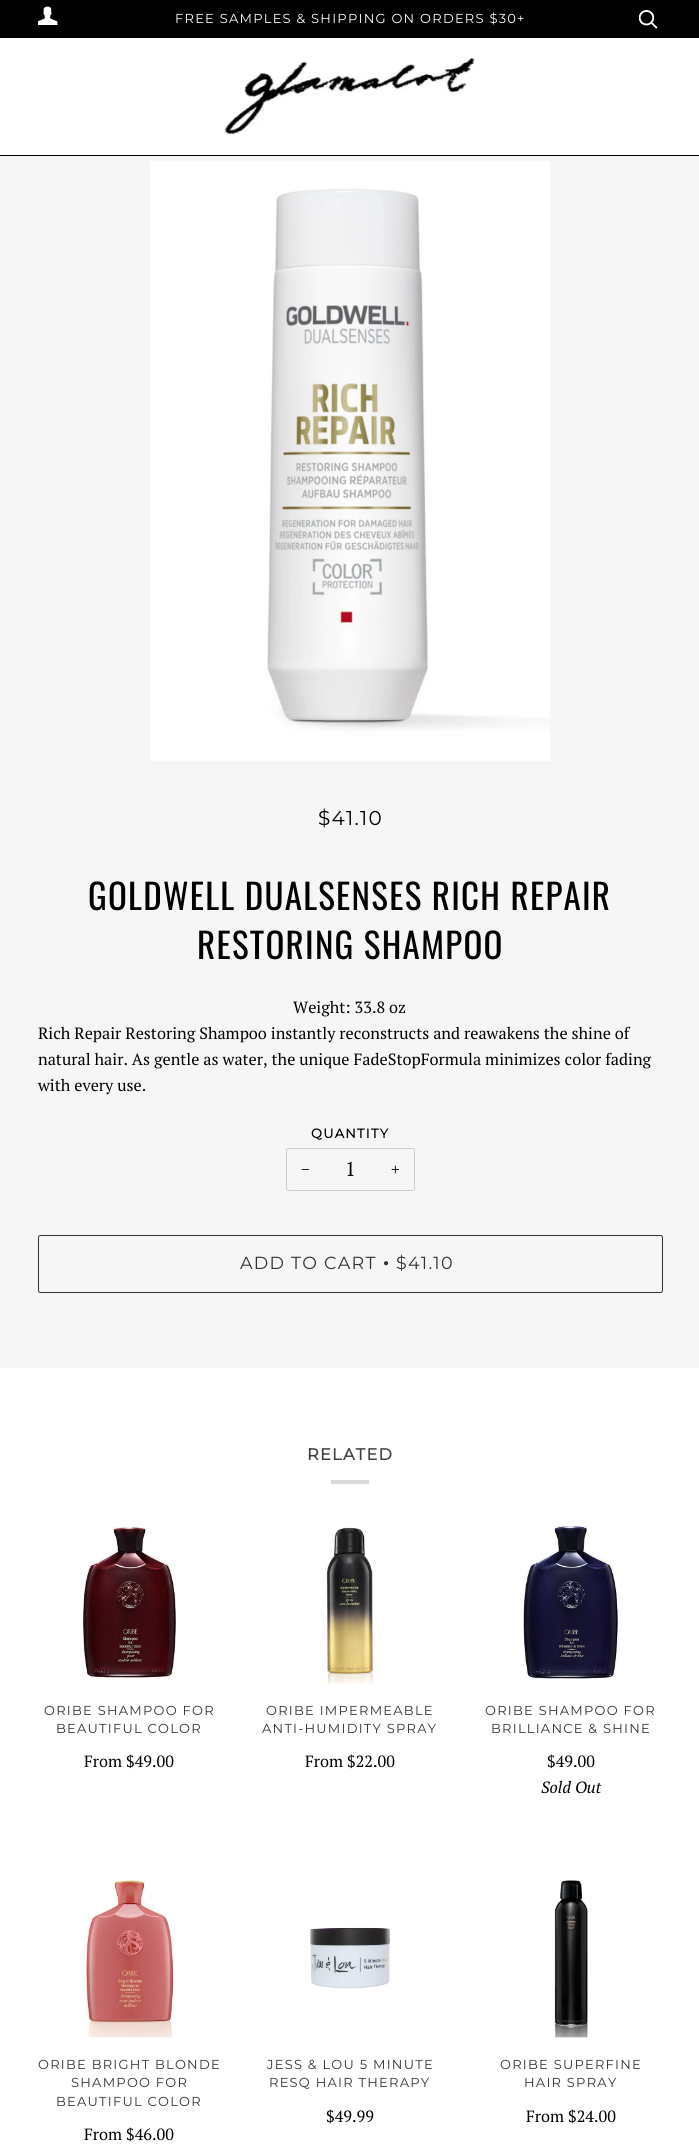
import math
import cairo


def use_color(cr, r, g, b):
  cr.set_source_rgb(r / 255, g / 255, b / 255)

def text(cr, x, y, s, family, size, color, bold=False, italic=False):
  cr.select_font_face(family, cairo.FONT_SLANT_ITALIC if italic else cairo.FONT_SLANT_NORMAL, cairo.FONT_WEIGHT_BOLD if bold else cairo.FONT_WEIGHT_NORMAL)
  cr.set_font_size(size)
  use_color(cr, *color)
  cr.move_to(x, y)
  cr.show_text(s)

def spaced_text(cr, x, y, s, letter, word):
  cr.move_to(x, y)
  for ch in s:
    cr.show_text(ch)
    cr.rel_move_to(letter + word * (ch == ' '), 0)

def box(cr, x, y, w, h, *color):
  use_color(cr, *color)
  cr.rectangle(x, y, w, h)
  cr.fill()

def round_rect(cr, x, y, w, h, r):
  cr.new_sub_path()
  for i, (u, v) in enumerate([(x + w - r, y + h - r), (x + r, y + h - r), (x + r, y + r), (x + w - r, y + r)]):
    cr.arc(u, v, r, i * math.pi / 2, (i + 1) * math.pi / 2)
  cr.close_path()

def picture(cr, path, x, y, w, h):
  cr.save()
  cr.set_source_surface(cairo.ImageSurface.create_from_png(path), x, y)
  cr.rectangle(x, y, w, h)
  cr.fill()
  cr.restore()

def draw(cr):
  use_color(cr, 255, 255, 255)
  cr.paint()
  box(cr, 0, 0, 699, 38, 0, 0, 0)
  picture(cr, "img_01.png", 38, 6, 20, 19)
  picture(cr, "img_02.png", 639, 10, 19, 19)
  box(cr, 0, 155, 699, 1, 0, 0, 0)
  picture(cr, "img_03.png", 223, 58, 252, 77)
  box(cr, 0, 156, 699, 1212, 246, 246, 246)
  picture(cr, "img_04.png", 150, 161, 400, 600)
  round_rect(cr, 286.5, 1148.5, 128, 42, 2)
  use_color(cr, 204, 204, 204)
  cr.set_line_width(1)
  cr.stroke()
  round_rect(cr, 38.5, 1235.5, 624, 57, 2)
  use_color(cr, 51, 51, 51)
  cr.stroke()
  box(cr, 331, 1480, 38, 4, 217, 217, 217)
  picture(cr, "img_05.png", 82, 1527, 94, 151)
  picture(cr, "img_06.png", 326, 1527, 49, 157)
  picture(cr, "img_07.png", 523, 1526, 95, 153)
  picture(cr, "img_08.png", 86, 1879, 89, 159)
  picture(cr, "img_09.png", 310, 1927, 81, 62)
  picture(cr, "img_10.png", 554, 1880, 34, 158)
  cr.select_font_face("Montserrat Thin")
  cr.set_font_size(13)
  use_color(cr, 255, 255, 255)
  spaced_text(cr, 175, 23, "FREE SAMPLES & SHIPPING ON ORDERS $30+", 1.25, 0)
  cr.set_font_size(20)
  use_color(cr, 0, 0, 0)
  spaced_text(cr, 318, 825, "$41.10", 1.25, 0)
  cr.select_font_face("Oswald")
  cr.set_font_size(35)
  spaced_text(cr, 88, 910, "GOLDWELL DUALSENSES RICH REPAIR", 1.25, 0)
  spaced_text(cr, 197, 959, "RESTORING SHAMPOO", 1.25, 0)
  text(cr, 293, 1013, "Weight: 33.8 oz", "PT Serif", 16.25, (0, 0, 0))
  text(cr, 38, 1039, "Rich Repair Restoring Shampoo instantly reconstructs and reawakens the shine of", "PT Serif", 16.25, (0, 0, 0))
  text(cr, 38, 1065, "natural hair. As gentle as water, the unique FadeStopFormula minimizes color fading", "PT Serif", 16.25, (0, 0, 0))
  text(cr, 38, 1091, "with every use.", "PT Serif", 16.25, (0, 0, 0))
  cr.select_font_face("Montserrat", cairo.FONT_SLANT_NORMAL, cairo.FONT_WEIGHT_BOLD)
  cr.set_font_size(13)
  spaced_text(cr, 311, 1138, "QUANTITY", 1.25, 0)
  text(cr, 301, 1175, "−", "PT Serif", 16.25, (0, 0, 0))
  text(cr, 345, 1176, "1", "PT Serif", 20, (0, 0, 0))
  text(cr, 391, 1175, "+", "PT Serif", 16.25, (0, 0, 0))
  cr.select_font_face("Montserrat Thin")
  cr.set_font_size(17.5)
  use_color(cr, 51, 51, 51)
  spaced_text(cr, 240, 1269, "ADD TO CART", 1.25, 0)
  cr.select_font_face("Liberation Serif")
  spaced_text(cr, 383, 1269, "•", 1.25, 0)
  cr.select_font_face("Montserrat Thin")
  spaced_text(cr, 396, 1269, "$41.10", 1.25, 0)
  cr.select_font_face("Montserrat", cairo.FONT_SLANT_NORMAL, cairo.FONT_WEIGHT_BOLD)
  cr.set_font_size(16.25)
  use_color(cr, 64, 64, 64)
  spaced_text(cr, 307, 1460, "RELATED", 1.25, 0)
  cr.select_font_face("Montserrat Thin")
  cr.set_font_size(13)
  use_color(cr, 51, 51, 51)
  spaced_text(cr, 44, 1715, "ORIBE SHAMPOO FOR", 1.25, 0)
  spaced_text(cr, 56, 1733, "BEAUTIFUL COLOR", 1.25, 0)
  text(cr, 84, 1767, "From $49.00", "PT Serif", 16.25, (0, 0, 0))
  cr.select_font_face("Montserrat Thin")
  cr.set_font_size(13)
  use_color(cr, 51, 51, 51)
  spaced_text(cr, 266, 1715, "ORIBE IMPERMEABLE", 1.25, 0)
  spaced_text(cr, 262, 1733, "ANTI-HUMIDITY SPRAY", 1.25, 0)
  text(cr, 305, 1767, "From $22.00", "PT Serif", 16.25, (0, 0, 0))
  cr.select_font_face("Montserrat Thin")
  cr.set_font_size(13)
  use_color(cr, 51, 51, 51)
  spaced_text(cr, 485, 1715, "ORIBE SHAMPOO FOR", 1.25, 0)
  spaced_text(cr, 491, 1733, "BRILLIANCE & SHINE", 1.25, 0)
  text(cr, 547, 1767, "$49.00", "PT Serif", 16.25, (0, 0, 0))
  text(cr, 541, 1793, "Sold Out", "PT Serif", 16.25, (0, 0, 0), italic=True)
  cr.select_font_face("Montserrat Thin")
  cr.set_font_size(13)
  use_color(cr, 51, 51, 51)
  spaced_text(cr, 38, 2069, "ORIBE BRIGHT BLONDE", 1.25, 0)
  spaced_text(cr, 71, 2087, "SHAMPOO FOR", 1.25, 0)
  spaced_text(cr, 56, 2106, "BEAUTIFUL COLOR", 1.25, 0)
  text(cr, 84, 2140, "From $46.00", "PT Serif", 16.25, (0, 0, 0))
  cr.select_font_face("Montserrat Thin")
  cr.set_font_size(13)
  use_color(cr, 51, 51, 51)
  spaced_text(cr, 267, 2069, "JESS & LOU 5 MINUTE", 1.25, 0)
  spaced_text(cr, 269, 2087, "RESQ HAIR THERAPY", 1.25, 0)
  text(cr, 326, 2122, "$49.99", "PT Serif", 16.25, (0, 0, 0))
  cr.select_font_face("Montserrat Thin")
  cr.set_font_size(13)
  use_color(cr, 51, 51, 51)
  spaced_text(cr, 500, 2069, "ORIBE SUPERFINE", 1.25, 0)
  spaced_text(cr, 524, 2087, "HAIR SPRAY", 1.25, 0)
  text(cr, 526, 2122, "From $24.00", "PT Serif", 16.25, (0, 0, 0))


surface = cairo.ImageSurface(cairo.FORMAT_RGB24, 699, 2146)
cr = cairo.Context(surface)
options = cairo.FontOptions()
options.set_hint_metrics(cairo.HINT_METRICS_OFF)
options.set_hint_style(cairo.HINT_STYLE_NONE)
cr.set_font_options(options)
cr.set_miter_limit(4)
draw(cr)
surface.write_to_png("out.png")
